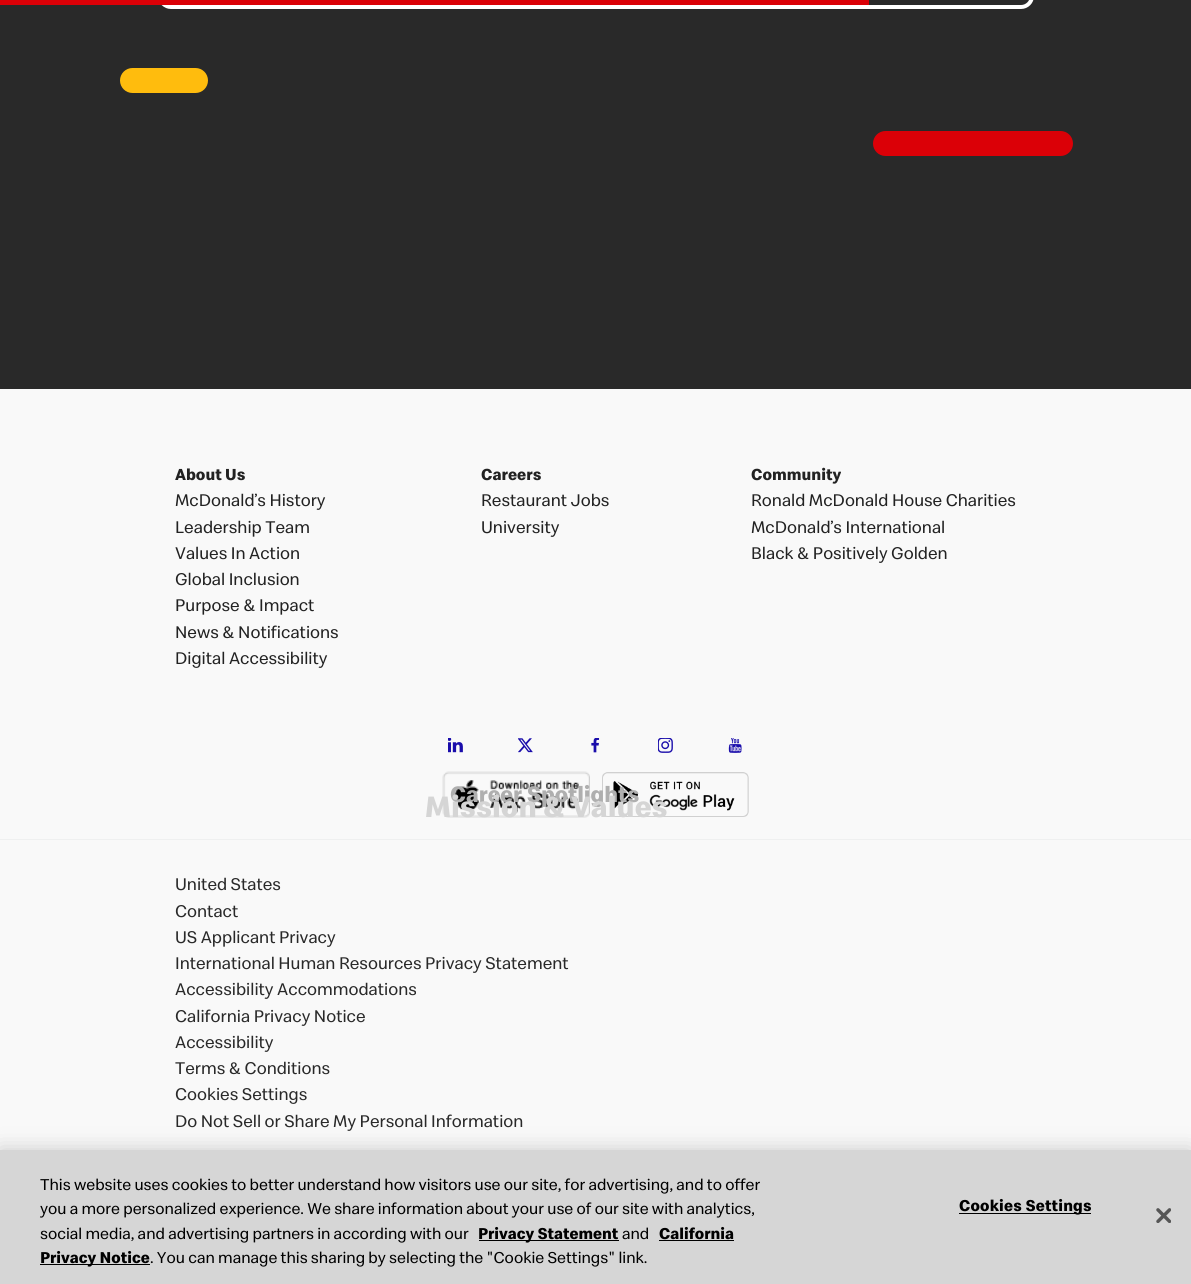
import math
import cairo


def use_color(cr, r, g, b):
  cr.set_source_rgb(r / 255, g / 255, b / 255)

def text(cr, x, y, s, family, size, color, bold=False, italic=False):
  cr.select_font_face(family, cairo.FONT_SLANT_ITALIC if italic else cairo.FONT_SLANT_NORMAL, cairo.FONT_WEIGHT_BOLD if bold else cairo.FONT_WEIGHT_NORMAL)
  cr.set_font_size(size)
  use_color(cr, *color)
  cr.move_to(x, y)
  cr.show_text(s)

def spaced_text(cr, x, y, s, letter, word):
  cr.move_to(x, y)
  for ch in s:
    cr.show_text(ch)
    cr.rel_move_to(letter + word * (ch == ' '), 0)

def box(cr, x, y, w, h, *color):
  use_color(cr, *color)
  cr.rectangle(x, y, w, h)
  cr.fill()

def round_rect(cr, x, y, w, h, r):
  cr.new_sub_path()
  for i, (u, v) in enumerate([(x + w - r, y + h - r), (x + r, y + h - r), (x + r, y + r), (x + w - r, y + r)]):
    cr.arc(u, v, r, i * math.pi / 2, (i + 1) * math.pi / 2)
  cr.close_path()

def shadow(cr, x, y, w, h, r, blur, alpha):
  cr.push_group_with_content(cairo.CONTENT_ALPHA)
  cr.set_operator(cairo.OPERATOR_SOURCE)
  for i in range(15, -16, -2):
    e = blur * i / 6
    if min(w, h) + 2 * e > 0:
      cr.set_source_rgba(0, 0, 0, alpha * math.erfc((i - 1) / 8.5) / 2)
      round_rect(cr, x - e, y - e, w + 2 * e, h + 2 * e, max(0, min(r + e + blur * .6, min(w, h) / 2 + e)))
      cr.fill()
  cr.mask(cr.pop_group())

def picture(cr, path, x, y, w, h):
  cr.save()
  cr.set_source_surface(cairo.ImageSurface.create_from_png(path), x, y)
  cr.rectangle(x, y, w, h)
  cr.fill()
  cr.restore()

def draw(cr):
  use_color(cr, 249, 249, 249)
  cr.paint()
  box(cr, 0, 0, 1191, 389, 41, 41, 41)
  round_rect(cr, 160, -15, 872, 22, 11)
  use_color(cr, 255, 255, 255)
  cr.set_line_width(4)
  cr.stroke()
  use_color(cr, 255, 188, 13)
  round_rect(cr, 120, 68, 88, 25, 12.5)
  cr.fill()
  use_color(cr, 219, 0, 7)
  round_rect(cr, 873, 131, 200, 25, 12.5)
  cr.fill()
  picture(cr, "img_01.png", 448, 738, 15, 15)
  picture(cr, "img_02.png", 518, 738, 15, 15)
  picture(cr, "img_03.png", 591, 738, 9, 15)
  picture(cr, "img_04.png", 658, 738, 15, 15)
  picture(cr, "img_05.png", 728, 738, 14, 15)
  picture(cr, "img_06.png", 442, 771, 148, 47)
  picture(cr, "img_07.png", 602, 772, 147, 45)
  box(cr, 0, 839, 1191, 1, 239, 240, 240)
  box(cr, 0, 0, 869, 5, 219, 0, 7)
  use_color(cr, 0, 0, 0)
  shadow(cr, 0, 1150, 1191, 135, 0, 11, 0.2)
  box(cr, 0, 1150, 1191, 134, 214, 214, 214)
  box(cr, 479, 1240, 140, 1, 0, 0, 0)
  box(cr, 659, 1240, 75, 1, 0, 0, 0)
  box(cr, 40, 1264, 110, 1, 0, 0, 0)
  box(cr, 959, 1213, 132, 1, 0, 0, 0)
  picture(cr, "img_08.png", 1156, 1208, 15, 15)
  text(cr, 175, 480, "About Us", "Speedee", 16.5, (34, 34, 34), bold=True)
  text(cr, 175, 506, "McDonald’s History", "Speedee", 17.5, (34, 34, 34))
  text(cr, 175, 533, "Leadership Team", "Speedee", 17.5, (34, 34, 34))
  text(cr, 175, 559, "Values In Action", "Speedee", 17.5, (34, 34, 34))
  text(cr, 175, 585, "Global Inclusion", "Speedee", 17.5, (34, 34, 34))
  text(cr, 175, 611, "Purpose & Impact", "Speedee", 17.5, (34, 34, 34))
  text(cr, 175, 638, "News & Notifications", "Speedee", 17.5, (34, 34, 34))
  text(cr, 175, 664, "Digital Accessibility", "Speedee", 17.5, (34, 34, 34))
  text(cr, 481, 480, "Careers", "Speedee", 16.5, (34, 34, 34), bold=True)
  text(cr, 481, 506, "Restaurant Jobs", "Speedee", 17.5, (34, 34, 34))
  text(cr, 481, 533, "University", "Speedee", 17.5, (34, 34, 34))
  text(cr, 751, 480, "Community", "Speedee", 16.5, (34, 34, 34), bold=True)
  text(cr, 751, 506, "Ronald McDonald House Charities", "Speedee", 17.5, (34, 34, 34))
  text(cr, 751, 533, "McDonald’s International", "Speedee", 17.5, (34, 34, 34))
  text(cr, 751, 559, "Black & Positively Golden", "Speedee", 17.5, (34, 34, 34))
  text(cr, 175, 890, "United States", "Speedee", 17.5, (41, 41, 41))
  text(cr, 175, 917, "Contact", "Speedee", 17.5, (41, 41, 41))
  text(cr, 175, 943, "US Applicant Privacy", "Speedee", 17.5, (41, 41, 41))
  text(cr, 175, 969, "International Human Resources Privacy Statement", "Speedee", 17.5, (41, 41, 41))
  text(cr, 175, 995, "Accessibility Accommodations", "Speedee", 17.5, (41, 41, 41))
  text(cr, 175, 1022, "California Privacy Notice", "Speedee", 17.5, (41, 41, 41))
  text(cr, 175, 1048, "Accessibility", "Speedee", 17.5, (41, 41, 41))
  text(cr, 175, 1074, "Terms & Conditions", "Speedee", 17.5, (41, 41, 41))
  text(cr, 175, 1100, "Cookies Settings", "Speedee", 17.5, (41, 41, 41))
  text(cr, 175, 1127, "Do Not Sell or Share My Personal Information", "Speedee", 17.5, (41, 41, 41))
  text(cr, 450, 802, "Career Spotlights", "Speedee", 23, (175, 175, 175), bold=True)
  text(cr, 425, 817, "Mission & Values", "Speedee", 30.5, (213, 213, 213), bold=True)
  text(cr, 40, 1190, "This website uses cookies to better understand how visitors use our site, for advertising, and to offer", "Speedee", 16.25, (0, 0, 0))
  text(cr, 40, 1214, "you a more personalized experience. We share information about your use of our site with analytics,", "Speedee", 16.25, (0, 0, 0))
  text(cr, 40, 1239, "social media, and advertising partners in according with our", "Speedee", 16.25, (0, 0, 0))
  text(cr, 478, 1239, "Privacy Statement", "Speedee", 16.25, (0, 0, 0), bold=True)
  text(cr, 622, 1239, "and", "Speedee", 16.25, (0, 0, 0))
  text(cr, 659, 1239, "California", "Speedee", 16.25, (0, 0, 0), bold=True)
  text(cr, 40, 1263, "Privacy Notice", "Speedee", 16.25, (0, 0, 0), bold=True)
  text(cr, 150, 1263, ". You can manage this sharing by selecting the \"Cookie Settings\" link.", "Speedee", 16.25, (0, 0, 0))
  cr.select_font_face("Speedee", cairo.FONT_SLANT_NORMAL, cairo.FONT_WEIGHT_BOLD)
  spaced_text(cr, 959, 1211, "Cookies Settings", 0.2, 0)


surface = cairo.ImageSurface(cairo.FORMAT_RGB24, 1191, 1284)
cr = cairo.Context(surface)
options = cairo.FontOptions()
options.set_hint_metrics(cairo.HINT_METRICS_OFF)
options.set_hint_style(cairo.HINT_STYLE_NONE)
cr.set_font_options(options)
cr.set_miter_limit(4)
draw(cr)
surface.write_to_png("out.png")
